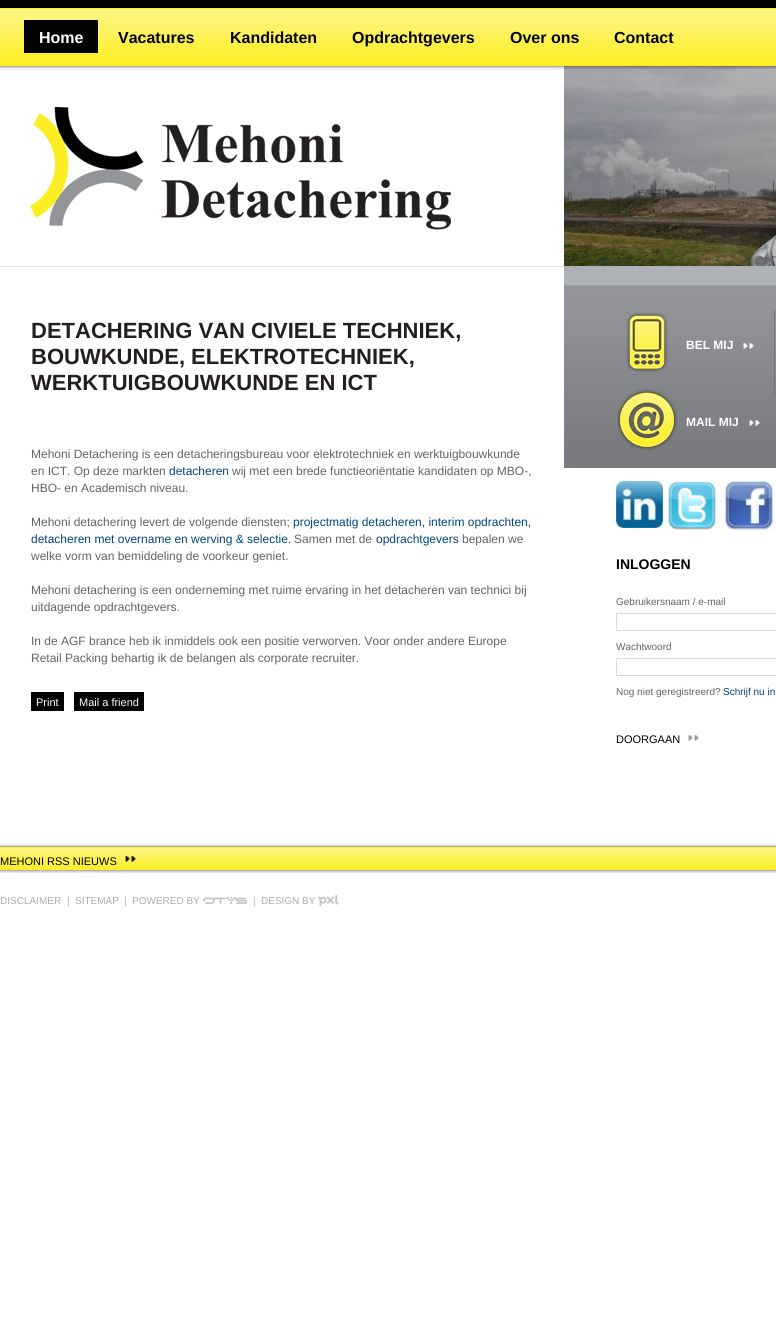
import math
import cairo


def use_color(cr, r, g, b):
  cr.set_source_rgb(r / 255, g / 255, b / 255)

def text(cr, x, y, s, family, size, color, bold=False, italic=False):
  cr.select_font_face(family, cairo.FONT_SLANT_ITALIC if italic else cairo.FONT_SLANT_NORMAL, cairo.FONT_WEIGHT_BOLD if bold else cairo.FONT_WEIGHT_NORMAL)
  cr.set_font_size(size)
  use_color(cr, *color)
  cr.move_to(x, y)
  cr.show_text(s)

def box(cr, x, y, w, h, *color):
  use_color(cr, *color)
  cr.rectangle(x, y, w, h)
  cr.fill()

def picture(cr, path, x, y, w, h):
  cr.save()
  cr.set_source_surface(cairo.ImageSurface.create_from_png(path), x, y)
  cr.rectangle(x, y, w, h)
  cr.fill()
  cr.restore()

def draw(cr):
  use_color(cr, 255, 255, 255)
  cr.paint()
  picture(cr, "img_01.png", 0, 0, 776, 468)
  box(cr, 24, 20, 3, 33, 2, 2, 2)
  box(cr, 27, 20, 71, 33, 2, 2, 2)
  box(cr, 0, 66, 564, 200, 255, 255, 255)
  picture(cr, "img_02.png", 0, 66, 564, 4)
  picture(cr, "img_03.png", 30, 107, 421, 123)
  picture(cr, "img_04.png", 564, 66, 212, 200)
  picture(cr, "img_05.png", 564, 66, 212, 4)
  box(cr, 0, 267, 564, 201, 255, 255, 255)
  box(cr, 0, 266, 564, 1, 228, 228, 229)
  box(cr, 31, 692, 33, 19, 2, 2, 2)
  box(cr, 74, 692, 70, 19, 2, 2, 2)
  picture(cr, "img_06.png", 626, 312, 42, 60)
  picture(cr, "img_07.png", 743, 343, 13, 6)
  picture(cr, "img_08.png", 617, 389, 60, 61)
  picture(cr, "img_09.png", 749, 420, 13, 6)
  box(cr, 774, 310, 1, 86, 115, 117, 119)
  picture(cr, "img_10.png", 616, 481, 47, 47)
  picture(cr, "img_11.png", 668, 481, 48, 49)
  picture(cr, "img_12.png", 724, 481, 50, 50)
  box(cr, 616, 613, 160, 1, 219, 219, 219)
  box(cr, 616, 630, 160, 1, 219, 219, 219)
  box(cr, 616, 613, 1, 18, 219, 219, 219)
  box(cr, 616, 658, 160, 1, 219, 219, 219)
  box(cr, 616, 675, 160, 1, 219, 219, 219)
  box(cr, 616, 658, 1, 18, 219, 219, 219)
  picture(cr, "img_13.png", 688, 735, 11, 6)
  picture(cr, "img_14.png", 0, 843, 776, 30)
  picture(cr, "img_15.png", 125, 856, 13, 6)
  picture(cr, "img_16.png", 203, 897, 44, 7)
  picture(cr, "img_17.png", 318, 895, 21, 11)
  text(cr, 39, 43, "Home", "Liberation Sans", 16, (255, 255, 255), bold=True)
  text(cr, 118, 43, "Vacatures", "Liberation Sans", 16, (2, 2, 2), bold=True)
  text(cr, 230, 43, "Kandidaten", "Liberation Sans", 16, (2, 2, 2), bold=True)
  text(cr, 352, 43, "Opdrachtgevers", "Liberation Sans", 16, (2, 2, 2), bold=True)
  text(cr, 510, 43, "Over ons", "Liberation Sans", 16, (2, 2, 2), bold=True)
  text(cr, 614, 43, "Contact", "Liberation Sans", 16, (2, 2, 2), bold=True)
  text(cr, 31, 338, "DETACHERING VAN CIVIELE TECHNIEK,", "Liberation Sans", 22, (35, 31, 32), bold=True)
  text(cr, 31, 364, "BOUWKUNDE, ELEKTROTECHNIEK,", "Liberation Sans", 22, (35, 31, 32), bold=True)
  text(cr, 31, 390, "WERKTUIGBOUWKUNDE EN ICT", "Liberation Sans", 22, (35, 31, 32), bold=True)
  text(cr, 31, 458, "Mehoni Detachering is een detacheringsbureau voor elektrotechniek en werktuigbouwkunde", "Liberation Sans", 12, (99, 99, 99))
  text(cr, 31, 475, "en ICT. Op deze markten", "Liberation Sans", 12, (99, 99, 99))
  text(cr, 169, 475, "detacheren", "Liberation Sans", 12, (0, 70, 127))
  text(cr, 232, 475, "wij met een brede functieoriëntatie kandidaten op MBO-,", "Liberation Sans", 12, (99, 99, 99))
  text(cr, 31, 492, "HBO- en Academisch niveau.", "Liberation Sans", 12, (99, 99, 99))
  text(cr, 31, 526, "Mehoni detachering levert de volgende diensten;", "Liberation Sans", 12, (99, 99, 99))
  text(cr, 293, 526, "projectmatig detacheren, interim opdrachten,", "Liberation Sans", 12, (0, 70, 127))
  text(cr, 31, 543, "detacheren met overname en werving & selectie.", "Liberation Sans", 12, (0, 70, 127))
  text(cr, 294, 543, "Samen met de", "Liberation Sans", 12, (99, 99, 99))
  text(cr, 376, 543, "opdrachtgevers", "Liberation Sans", 12, (0, 70, 127))
  text(cr, 462, 543, "bepalen we", "Liberation Sans", 12, (99, 99, 99))
  text(cr, 31, 560, "welke vorm van bemiddeling de voorkeur geniet.", "Liberation Sans", 12, (99, 99, 99))
  text(cr, 31, 594, "Mehoni detachering is een onderneming met ruime ervaring in het detacheren van technici bij", "Liberation Sans", 12, (99, 99, 99))
  text(cr, 31, 611, "uitdagende opdrachtgevers.", "Liberation Sans", 12, (99, 99, 99))
  text(cr, 31, 645, "In de AGF brance heb ik inmiddels ook een positie verworven. Voor onder andere Europe", "Liberation Sans", 12, (99, 99, 99))
  text(cr, 31, 662, "Retail Packing behartig ik de belangen als corporate recruiter.", "Liberation Sans", 12, (99, 99, 99))
  text(cr, 36, 706, "Print", "Liberation Sans", 11, (255, 255, 255))
  text(cr, 79, 706, "Mail a friend", "Liberation Sans", 11, (255, 255, 255))
  text(cr, 686, 349, "BEL MIJ", "Liberation Sans", 12, (255, 255, 255), bold=True)
  text(cr, 686, 426, "MAIL MIJ", "Liberation Sans", 12, (255, 255, 255), bold=True)
  text(cr, 616, 569, "INLOGGEN", "Liberation Sans", 14, (2, 2, 2), bold=True)
  text(cr, 616, 605, "Gebruikersnaam / e-mail", "Liberation Sans", 10, (99, 99, 99))
  text(cr, 616, 650, "Wachtwoord", "Liberation Sans", 10, (99, 99, 99))
  text(cr, 616, 695, "Nog niet geregistreerd?", "Liberation Sans", 10, (99, 99, 99))
  text(cr, 723, 695, "Schrijf nu in", "Liberation Sans", 10, (0, 70, 127))
  text(cr, 616, 743, "DOORGAAN", "Liberation Sans", 11, (2, 2, 2))
  text(cr, 0, 865, "MEHONI RSS NIEUWS", "Liberation Sans", 11, (2, 2, 2))
  text(cr, 0, 904, "DISCLAIMER", "Liberation Sans", 10, (172, 172, 172))
  text(cr, 67, 904, "|", "Liberation Sans", 10, (172, 172, 172))
  text(cr, 75, 904, "SITEMAP", "Liberation Sans", 10, (172, 172, 172))
  text(cr, 124, 904, "|", "Liberation Sans", 10, (172, 172, 172))
  text(cr, 132, 904, "POWERED BY", "Liberation Sans", 10, (172, 172, 172))
  text(cr, 253, 904, "|", "Liberation Sans", 10, (172, 172, 172))
  text(cr, 261, 904, "DESIGN BY", "Liberation Sans", 10, (172, 172, 172))


surface = cairo.ImageSurface(cairo.FORMAT_RGB24, 776, 1334)
cr = cairo.Context(surface)
options = cairo.FontOptions()
options.set_hint_metrics(cairo.HINT_METRICS_OFF)
options.set_hint_style(cairo.HINT_STYLE_NONE)
cr.set_font_options(options)
cr.set_miter_limit(4)
draw(cr)
surface.write_to_png("out.png")
